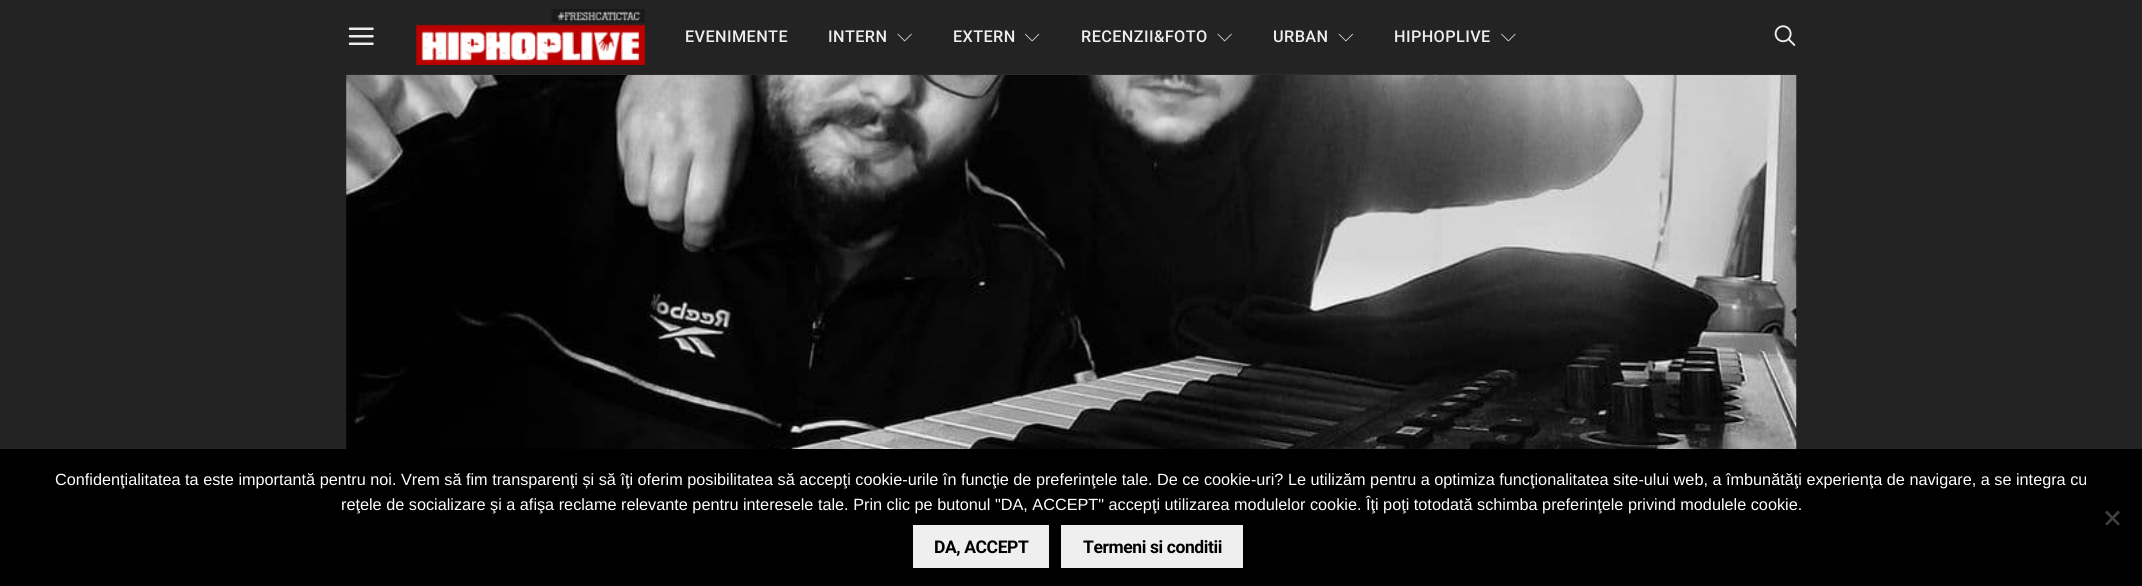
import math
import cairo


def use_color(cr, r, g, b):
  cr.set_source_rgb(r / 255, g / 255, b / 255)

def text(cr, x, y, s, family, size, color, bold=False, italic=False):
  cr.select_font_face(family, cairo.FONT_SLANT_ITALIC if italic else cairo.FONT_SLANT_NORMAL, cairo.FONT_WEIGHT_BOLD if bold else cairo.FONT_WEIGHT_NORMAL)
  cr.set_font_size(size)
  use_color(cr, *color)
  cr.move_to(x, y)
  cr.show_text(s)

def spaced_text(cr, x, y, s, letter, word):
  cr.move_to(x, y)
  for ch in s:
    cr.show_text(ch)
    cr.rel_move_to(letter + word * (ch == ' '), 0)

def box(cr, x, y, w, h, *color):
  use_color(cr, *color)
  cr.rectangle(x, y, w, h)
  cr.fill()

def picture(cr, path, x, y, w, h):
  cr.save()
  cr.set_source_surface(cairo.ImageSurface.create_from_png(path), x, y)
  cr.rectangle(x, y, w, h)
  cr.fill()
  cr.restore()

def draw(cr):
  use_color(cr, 35, 35, 35)
  cr.paint()
  box(cr, 346, 74, 1450, 1, 43, 43, 43)
  picture(cr, "img_01.png", 348, 27, 26, 18)
  picture(cr, "img_02.png", 416, 9, 229, 56)
  picture(cr, "img_03.png", 897, 33, 15, 9)
  picture(cr, "img_04.png", 1025, 33, 15, 9)
  picture(cr, "img_03.png", 1217, 33, 15, 9)
  picture(cr, "img_05.png", 1338, 33, 15, 9)
  picture(cr, "img_06.png", 1501, 33, 15, 9)
  picture(cr, "img_07.png", 1774, 25, 22, 21)
  picture(cr, "img_08.png", 346, 75, 1451, 374)
  box(cr, 0, 449, 2142, 137, 0, 0, 0)
  use_color(cr, 64, 64, 64)
  cr.new_path()
  cr.move_to(2118, 510.5)
  cr.line_to(2120, 512.5)
  cr.line_to(2107, 525.5)
  cr.line_to(2105, 524)
  cr.close_path()
  cr.fill()
  cr.new_path()
  cr.move_to(2105, 512.5)
  cr.line_to(2107, 510.5)
  cr.line_to(2120, 524)
  cr.line_to(2118, 525.5)
  cr.close_path()
  cr.fill()
  box(cr, 913, 525, 136, 43, 239, 239, 239)
  box(cr, 1061, 525, 182, 43, 239, 239, 239)
  cr.select_font_face("Roboto Medium")
  cr.set_font_size(16.25)
  use_color(cr, 238, 238, 238)
  spaced_text(cr, 685, 42, "EVENIMENTE", 0.4, 0)
  spaced_text(cr, 828, 42, "INTERN", 0.4, 0)
  spaced_text(cr, 953, 42, "EXTERN", 0.4, 0)
  spaced_text(cr, 1081, 42, "RECENZII&FOTO", 0.4, 0)
  spaced_text(cr, 1273, 42, "URBAN", 0.4, 0)
  spaced_text(cr, 1394, 42, "HIPHOPLIVE", 0.4, 0)
  text(cr, 55, 485, "Confidenţialitatea ta este importantă pentru noi. Vrem să fim transparenţi și să îţi oferim posibilitatea să accepţi cookie-urile în funcţie de preferinţele tale. De ce cookie-uri? Le utilizăm pentru a optimiza funcţionalitatea site-ului web, a îmbunătăţi experienţa de navigare, a se integra cu", "Liberation Sans", 16.25, (255, 255, 255))
  text(cr, 341, 510, "reţele de socializare şi a afişa reclame relevante pentru interesele tale. Prin clic pe butonul \"DA, ACCEPT\" accepţi utilizarea modulelor cookie. Îţi poţi totodată schimba preferinţele privind modulele cookie.", "Liberation Sans", 16.25, (255, 255, 255))
  cr.select_font_face("Roboto", cairo.FONT_SLANT_NORMAL, cairo.FONT_WEIGHT_BOLD)
  cr.set_font_size(17.5)
  use_color(cr, 0, 0, 0)
  spaced_text(cr, 934, 553, "DA, ACCEPT", -0.4, 0)
  spaced_text(cr, 1083, 553, "Termeni si conditii", -0.4, 0)


surface = cairo.ImageSurface(cairo.FORMAT_RGB24, 2142, 586)
cr = cairo.Context(surface)
options = cairo.FontOptions()
options.set_hint_metrics(cairo.HINT_METRICS_OFF)
options.set_hint_style(cairo.HINT_STYLE_NONE)
cr.set_font_options(options)
cr.set_miter_limit(4)
draw(cr)
surface.write_to_png("out.png")
